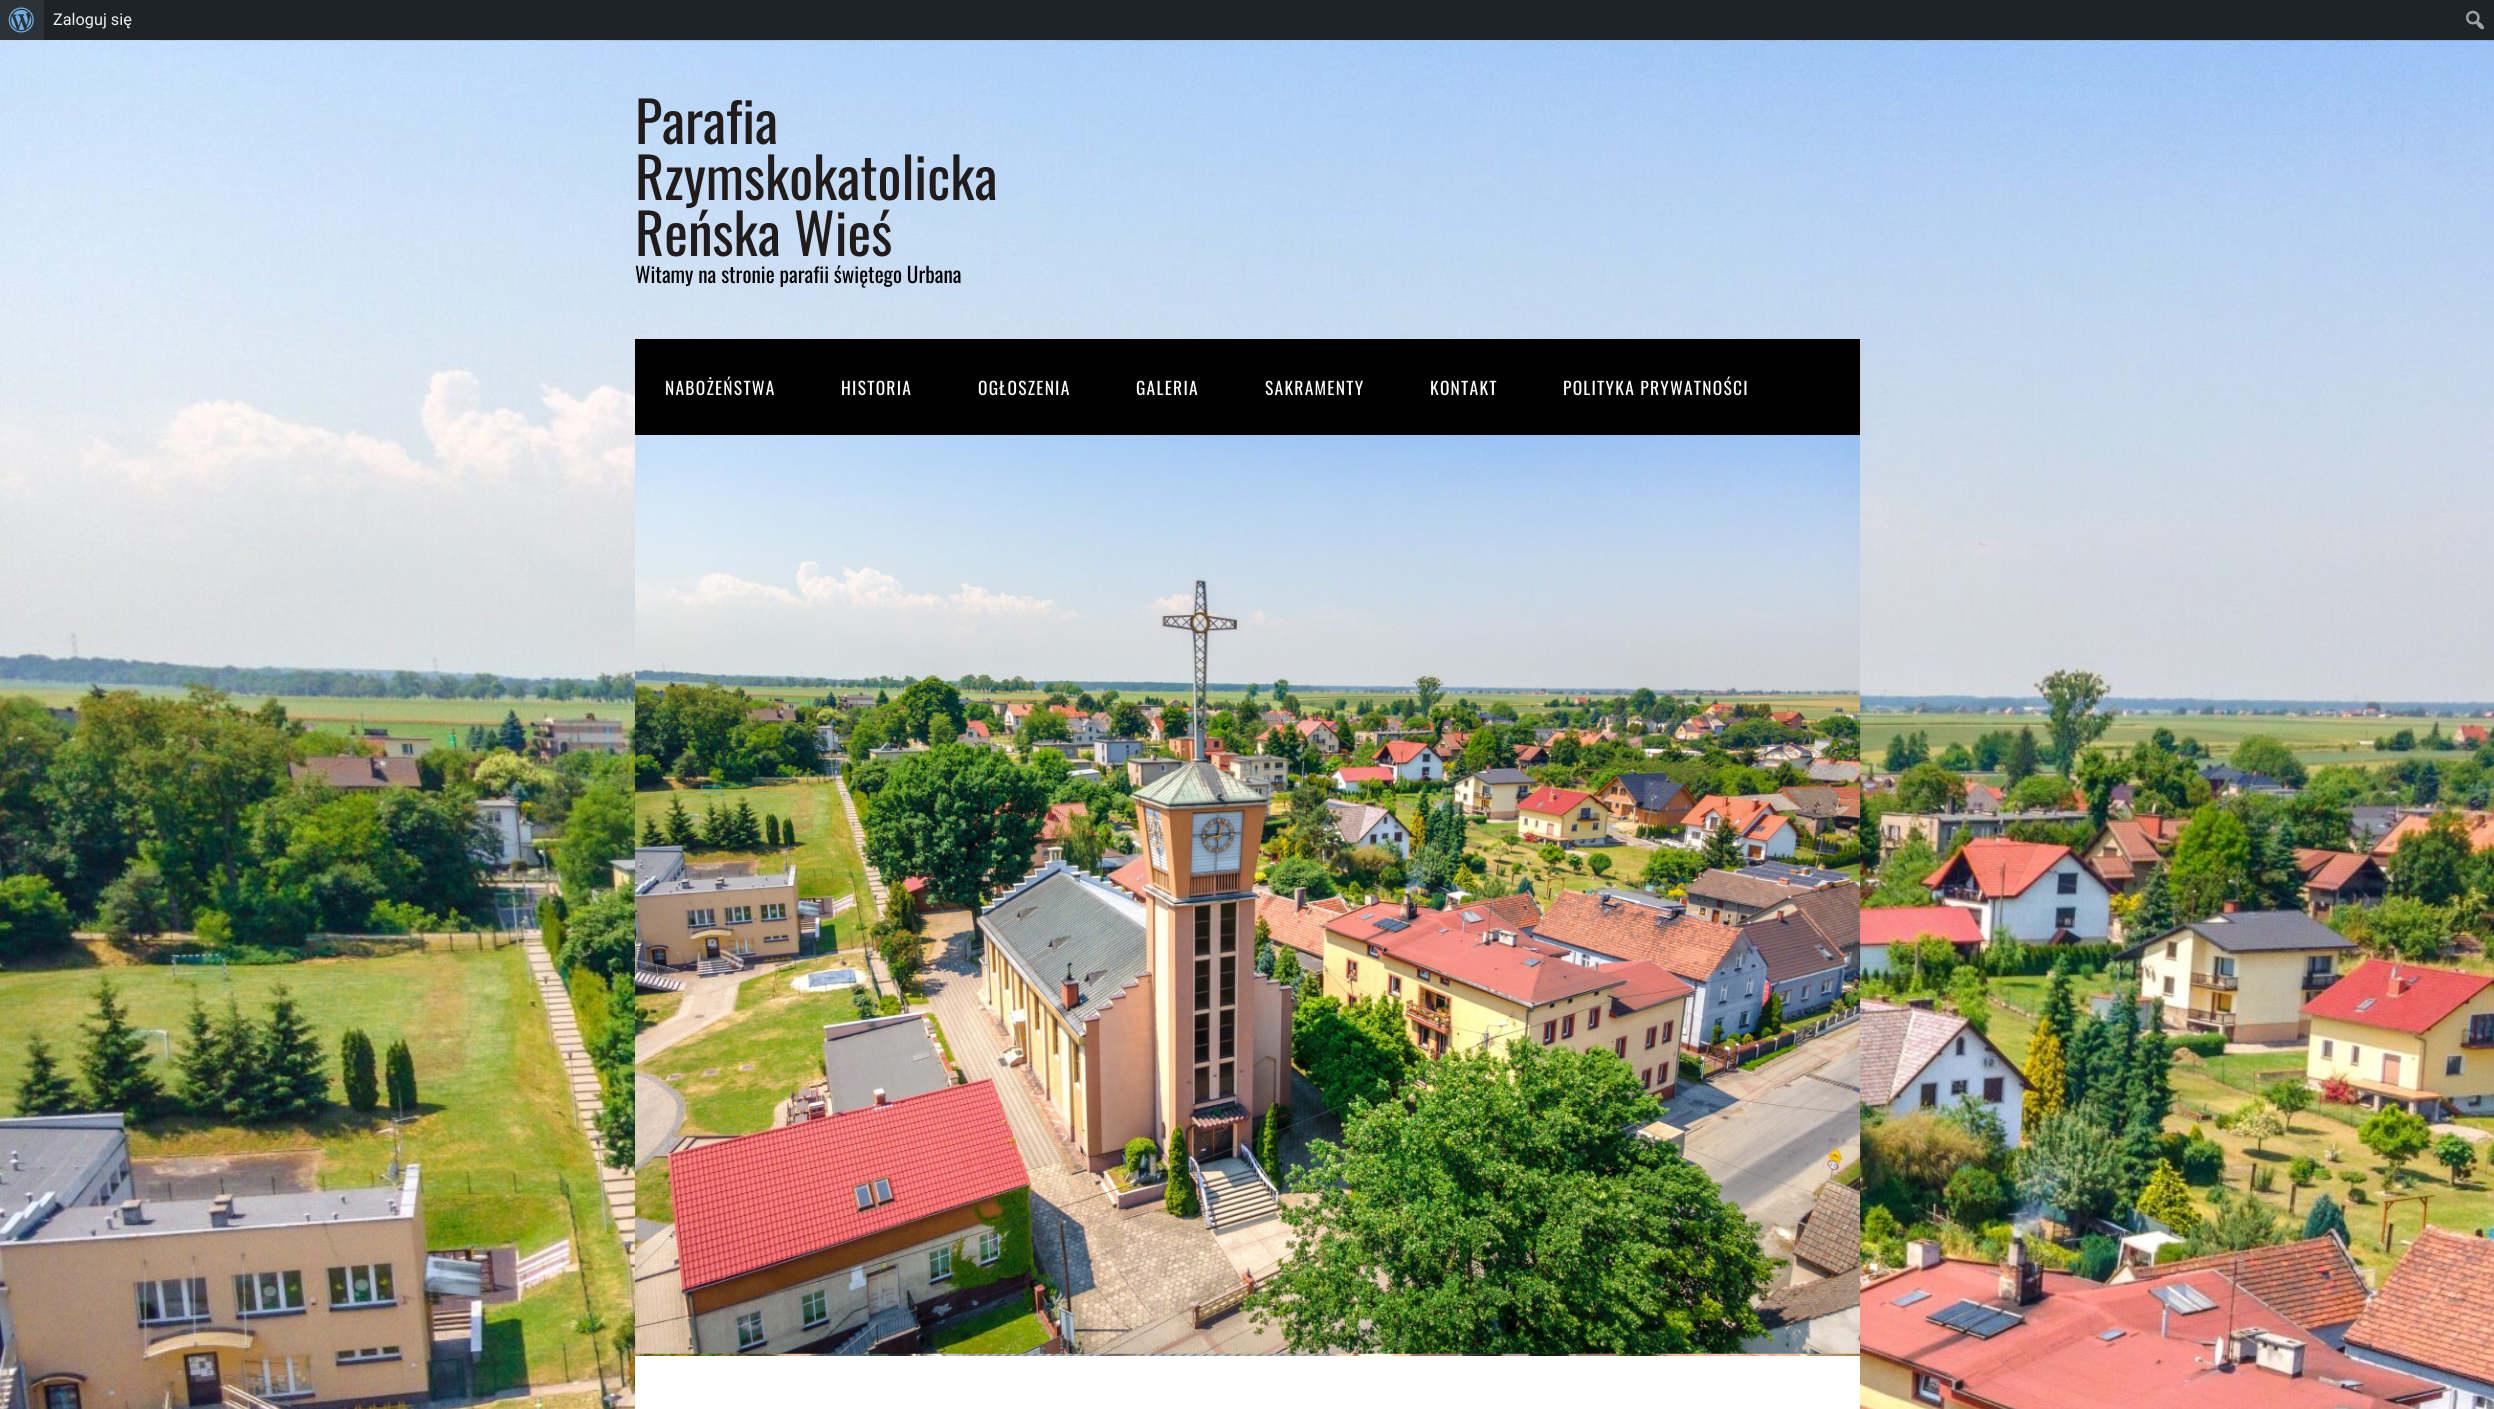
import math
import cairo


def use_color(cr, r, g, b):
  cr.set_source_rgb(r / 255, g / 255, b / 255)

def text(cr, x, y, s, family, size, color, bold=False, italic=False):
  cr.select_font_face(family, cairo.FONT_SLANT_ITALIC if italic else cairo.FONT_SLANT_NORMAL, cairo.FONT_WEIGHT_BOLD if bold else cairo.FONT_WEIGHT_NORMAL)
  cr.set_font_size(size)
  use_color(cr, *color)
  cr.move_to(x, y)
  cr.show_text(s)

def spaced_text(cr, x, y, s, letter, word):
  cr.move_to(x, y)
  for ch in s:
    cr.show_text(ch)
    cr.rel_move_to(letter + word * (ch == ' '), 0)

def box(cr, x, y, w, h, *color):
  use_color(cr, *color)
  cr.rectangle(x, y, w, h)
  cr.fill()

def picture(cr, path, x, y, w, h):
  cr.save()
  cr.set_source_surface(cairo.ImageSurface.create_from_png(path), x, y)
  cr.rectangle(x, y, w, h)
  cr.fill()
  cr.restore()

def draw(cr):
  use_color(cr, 255, 255, 255)
  cr.paint()
  picture(cr, "img_01.png", 0, 40, 2494, 1369)
  box(cr, 44, 0, 2450, 40, 29, 35, 39)
  box(cr, 0, 0, 44, 40, 44, 51, 56)
  picture(cr, "img_02.png", 8, 7, 26, 26)
  picture(cr, "img_03.png", 2466, 10, 18, 20)
  box(cr, 635, 339, 1225, 96, 0, 0, 0)
  picture(cr, "img_04.png", 635, 435, 1225, 919)
  box(cr, 635, 1356, 1225, 53, 255, 255, 255)
  text(cr, 53, 25, "Zaloguj się", "Roboto", 16.25, (240, 240, 241))
  text(cr, 635, 144, "Parafia", "Oswald", 56.25, (33, 27, 26))
  text(cr, 635, 200, "Rzymskokatolicka", "Oswald", 56.25, (33, 27, 26))
  text(cr, 635, 256, "Reńska Wieś", "Oswald", 56.25, (33, 27, 26))
  text(cr, 635, 283, "Witamy na stronie parafii świętego Urbana", "Oswald", 21.25, (0, 0, 0))
  cr.set_font_size(17.5)
  use_color(cr, 255, 255, 255)
  spaced_text(cr, 665, 395, "NABOŻEŃSTWA", 1.25, 0)
  spaced_text(cr, 841, 395, "HISTORIA", 1.25, 0)
  spaced_text(cr, 978, 395, "OGŁOSZENIA", 1.25, 0)
  spaced_text(cr, 1136, 395, "GALERIA", 1.25, 0)
  spaced_text(cr, 1265, 395, "SAKRAMENTY", 1.25, 0)
  spaced_text(cr, 1430, 395, "KONTAKT", 1.25, 0)
  spaced_text(cr, 1563, 395, "POLITYKA PRYWATNOŚCI", 1.25, 0)


surface = cairo.ImageSurface(cairo.FORMAT_RGB24, 2494, 1409)
cr = cairo.Context(surface)
options = cairo.FontOptions()
options.set_hint_metrics(cairo.HINT_METRICS_OFF)
options.set_hint_style(cairo.HINT_STYLE_NONE)
cr.set_font_options(options)
cr.set_miter_limit(4)
draw(cr)
surface.write_to_png("out.png")
